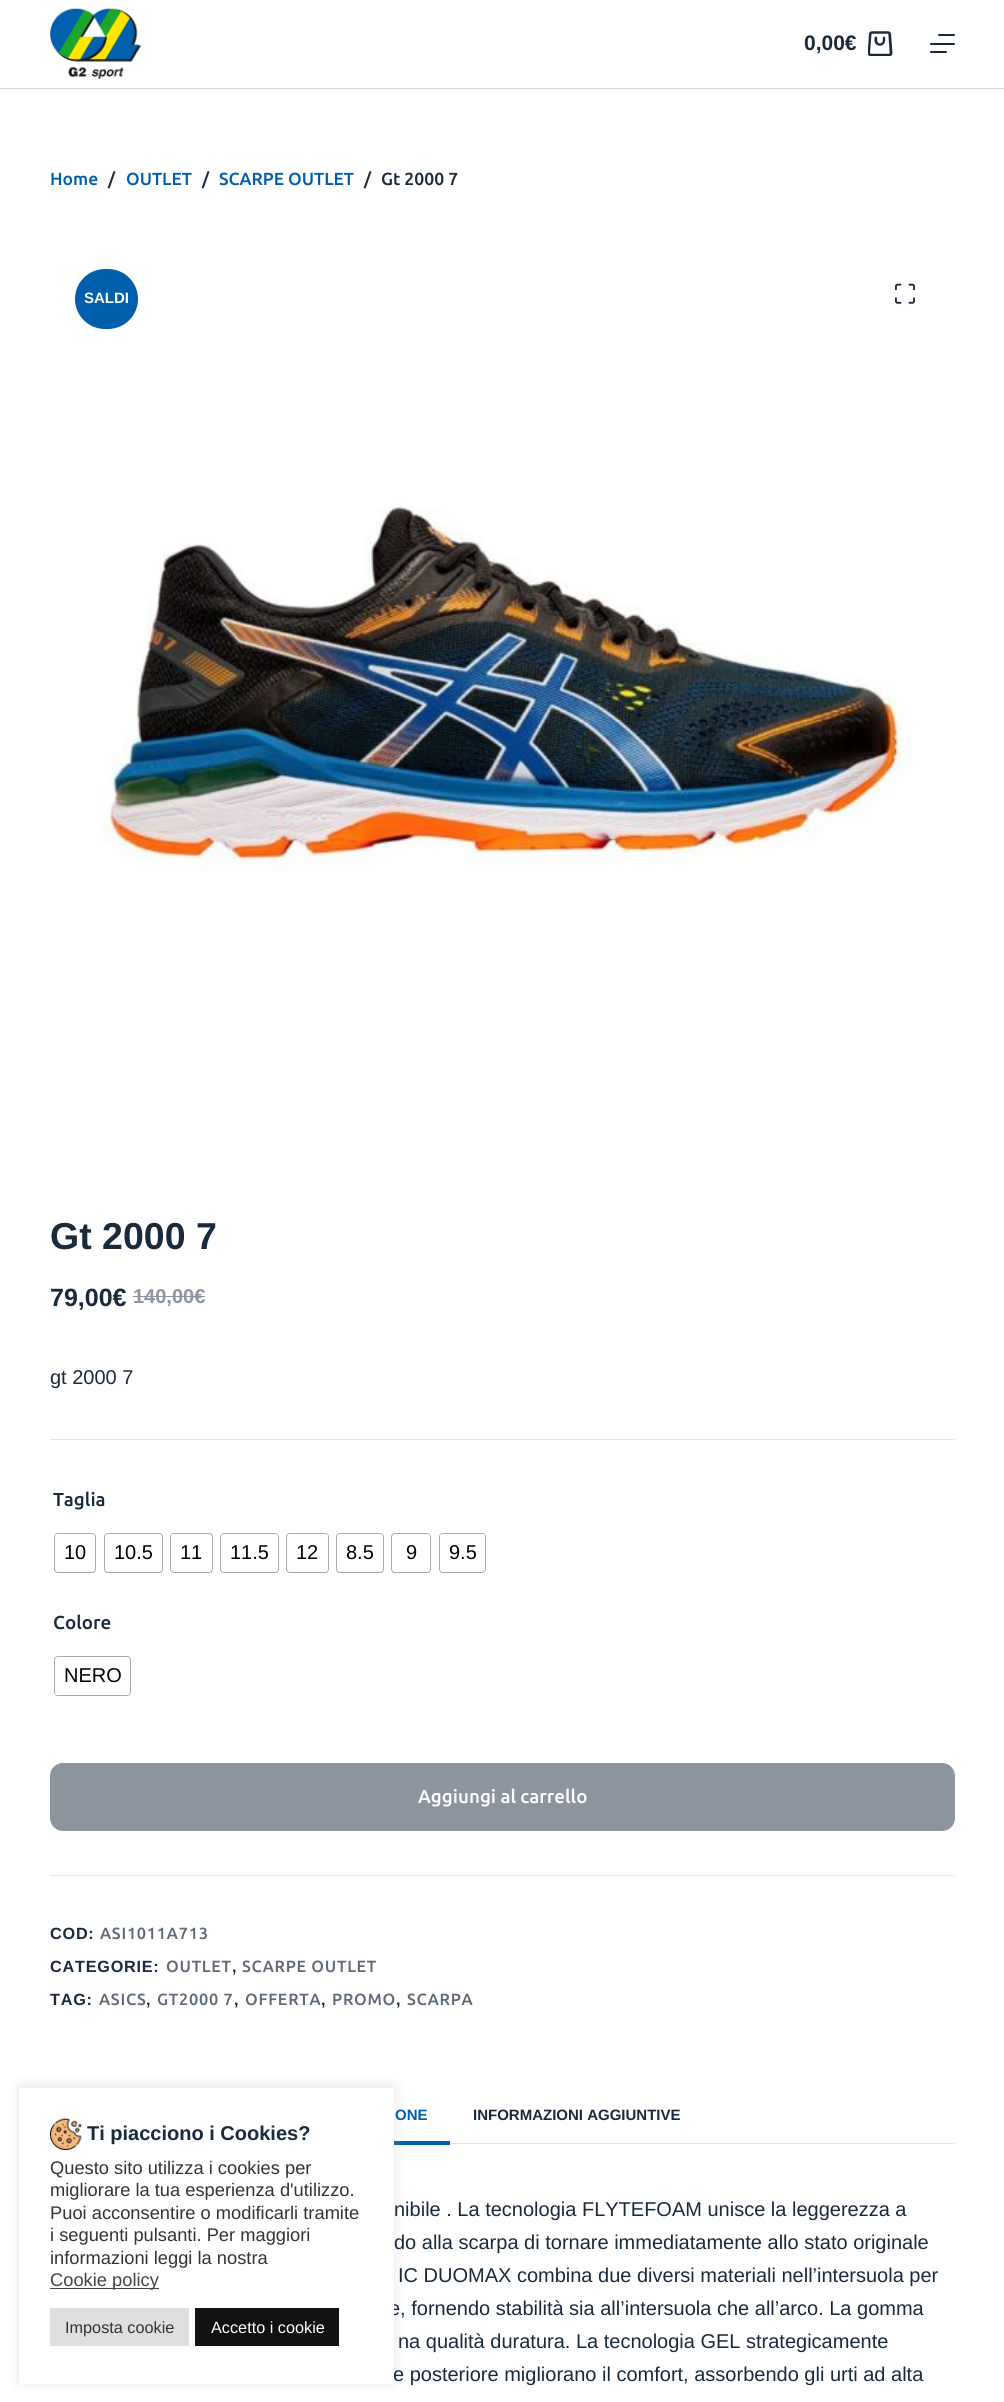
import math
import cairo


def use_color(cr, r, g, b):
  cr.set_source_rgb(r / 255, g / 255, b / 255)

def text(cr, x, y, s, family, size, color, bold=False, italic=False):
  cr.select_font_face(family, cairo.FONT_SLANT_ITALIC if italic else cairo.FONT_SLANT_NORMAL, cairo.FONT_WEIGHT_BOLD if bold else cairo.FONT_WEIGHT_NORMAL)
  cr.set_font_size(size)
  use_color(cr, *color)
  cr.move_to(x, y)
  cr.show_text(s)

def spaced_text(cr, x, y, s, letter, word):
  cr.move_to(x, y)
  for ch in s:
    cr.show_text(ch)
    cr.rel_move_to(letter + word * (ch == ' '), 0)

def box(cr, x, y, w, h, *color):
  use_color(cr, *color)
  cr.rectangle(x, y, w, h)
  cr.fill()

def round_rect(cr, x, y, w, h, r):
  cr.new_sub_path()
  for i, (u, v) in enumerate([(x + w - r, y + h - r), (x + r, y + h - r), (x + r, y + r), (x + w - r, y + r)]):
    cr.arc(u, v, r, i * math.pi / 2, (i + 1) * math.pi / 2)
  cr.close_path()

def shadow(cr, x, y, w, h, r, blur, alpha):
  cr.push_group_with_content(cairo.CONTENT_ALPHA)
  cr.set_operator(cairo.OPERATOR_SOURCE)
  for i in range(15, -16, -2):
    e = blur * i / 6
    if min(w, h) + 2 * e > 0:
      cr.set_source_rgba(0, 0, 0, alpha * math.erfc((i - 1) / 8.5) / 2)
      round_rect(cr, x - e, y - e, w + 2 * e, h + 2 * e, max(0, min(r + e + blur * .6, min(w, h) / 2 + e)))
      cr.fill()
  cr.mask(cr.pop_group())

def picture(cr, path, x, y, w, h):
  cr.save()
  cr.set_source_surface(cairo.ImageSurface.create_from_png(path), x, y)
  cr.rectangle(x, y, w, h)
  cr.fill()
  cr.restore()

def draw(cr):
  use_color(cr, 255, 255, 255)
  cr.paint()
  box(cr, 0, 88, 1004, 1, 213, 216, 220)
  picture(cr, "img_01.png", 50, 8, 92, 71)
  picture(cr, "img_02.png", 868, 31, 25, 25)
  use_color(cr, 25, 42, 61)
  round_rect(cr, 938, 34, 17, 2, 1)
  cr.fill()
  round_rect(cr, 930, 43, 25, 2, 1)
  cr.fill()
  round_rect(cr, 930, 51, 17, 2, 1)
  cr.fill()
  use_color(cr, 0, 95, 173)
  round_rect(cr, 75, 269, 63, 60, 30)
  cr.fill()
  picture(cr, "img_03.png", 895, 283, 20, 21)
  picture(cr, "img_04.png", 98, 500, 812, 371)
  box(cr, 133, 1296, 72, 1, 140, 149, 158)
  box(cr, 50, 1439, 905, 1, 225, 232, 237)
  round_rect(cr, 54.5, 1533.5, 41, 39, 3.5)
  use_color(cr, 168, 168, 168)
  cr.set_line_width(1)
  cr.stroke()
  use_color(cr, 255, 255, 255)
  round_rect(cr, 55, 1534, 40, 37, 2.5)
  cr.fill()
  round_rect(cr, 104.5, 1533.5, 58, 39, 3.5)
  use_color(cr, 168, 168, 168)
  cr.stroke()
  use_color(cr, 255, 255, 255)
  round_rect(cr, 105, 1534, 56, 37, 2.5)
  cr.fill()
  round_rect(cr, 170.5, 1533.5, 42, 39, 3.5)
  use_color(cr, 168, 168, 168)
  cr.stroke()
  use_color(cr, 255, 255, 255)
  round_rect(cr, 171, 1534, 40, 37, 2.5)
  cr.fill()
  round_rect(cr, 220.5, 1533.5, 58, 39, 3.5)
  use_color(cr, 168, 168, 168)
  cr.stroke()
  use_color(cr, 255, 255, 255)
  round_rect(cr, 221, 1534, 57, 37, 2.5)
  cr.fill()
  round_rect(cr, 286.5, 1533.5, 42, 39, 3.5)
  use_color(cr, 168, 168, 168)
  cr.stroke()
  use_color(cr, 255, 255, 255)
  round_rect(cr, 288, 1534, 40, 37, 2.5)
  cr.fill()
  round_rect(cr, 336.5, 1533.5, 47, 39, 3.5)
  use_color(cr, 168, 168, 168)
  cr.stroke()
  use_color(cr, 255, 255, 255)
  round_rect(cr, 338, 1534, 45, 37, 2.5)
  cr.fill()
  round_rect(cr, 391.5, 1533.5, 39, 39, 3.5)
  use_color(cr, 168, 168, 168)
  cr.stroke()
  use_color(cr, 255, 255, 255)
  round_rect(cr, 393, 1534, 37, 37, 2.5)
  cr.fill()
  round_rect(cr, 439.5, 1533.5, 46, 39, 3.5)
  use_color(cr, 168, 168, 168)
  cr.stroke()
  use_color(cr, 255, 255, 255)
  round_rect(cr, 440, 1534, 45, 37, 2.5)
  cr.fill()
  round_rect(cr, 54.5, 1656.5, 76, 39, 3.5)
  use_color(cr, 168, 168, 168)
  cr.stroke()
  use_color(cr, 255, 255, 255)
  round_rect(cr, 55, 1658, 75, 37, 2.5)
  cr.fill()
  use_color(cr, 140, 149, 158)
  round_rect(cr, 50, 1763, 905, 68, 13)
  cr.fill()
  box(cr, 50, 1875, 905, 1, 225, 232, 237)
  box(cr, 450, 2143, 505, 1, 225, 232, 237)
  box(cr, 394, 2141, 56, 4, 0, 95, 173)
  use_color(cr, 172, 171, 171)
  shadow(cr, 19, 2086, 375, 297, 0, 6, 0.3)
  text(cr, 804, 50, "0,00€", "Liberation Sans", 21, (25, 42, 61), bold=True)
  text(cr, 50, 185, "Home", "Ubuntu Medium", 17.5, (0, 95, 173))
  text(cr, 108, 185, "/", "Ubuntu Medium", 17.5, (25, 42, 61))
  text(cr, 126, 185, "OUTLET", "Ubuntu Medium", 17.5, (0, 95, 173))
  text(cr, 202, 185, "/", "Ubuntu Medium", 17.5, (25, 42, 61))
  text(cr, 219, 185, "SCARPE OUTLET", "Ubuntu Medium", 17.5, (0, 95, 173))
  text(cr, 364, 185, "/", "Ubuntu Medium", 17.5, (25, 42, 61))
  text(cr, 381, 185, "Gt 2000 7", "Ubuntu Medium", 17.5, (25, 42, 61))
  text(cr, 84, 303, "SALDI", "Liberation Sans", 15, (255, 255, 255), bold=True)
  text(cr, 50, 1249, "Gt 2000 7", "Liberation Sans", 37.5, (25, 42, 61), bold=True)
  text(cr, 50, 1306, "79,00€", "Liberation Sans", 25, (25, 42, 61), bold=True)
  text(cr, 133, 1303, "140,00€", "Liberation Sans", 20, (140, 149, 158), bold=True)
  text(cr, 50, 1384, "gt 2000 7", "Liberation Sans", 20, (25, 42, 61))
  text(cr, 53, 1506, "Taglia", "Ubuntu Medium", 18.75, (25, 42, 61))
  text(cr, 64, 1559, "10", "Liberation Sans", 20, (0, 0, 0))
  text(cr, 114, 1559, "10.5", "Liberation Sans", 20, (0, 0, 0))
  text(cr, 180, 1559, "11", "Liberation Sans", 20, (0, 0, 0))
  text(cr, 230, 1559, "11.5", "Liberation Sans", 20, (0, 0, 0))
  text(cr, 296, 1559, "12", "Liberation Sans", 20, (0, 0, 0))
  text(cr, 346, 1559, "8.5", "Liberation Sans", 20, (0, 0, 0))
  text(cr, 406, 1559, "9", "Liberation Sans", 20, (0, 0, 0))
  text(cr, 449, 1559, "9.5", "Liberation Sans", 20, (0, 0, 0))
  text(cr, 53, 1629, "Colore", "Ubuntu Medium", 18.75, (25, 42, 61))
  text(cr, 64, 1682, "NERO", "Liberation Sans", 20, (0, 0, 0))
  text(cr, 418, 1803, "Aggiungi al carrello", "Ubuntu Medium", 18.75, (255, 255, 255))
  cr.select_font_face("Liberation Sans", cairo.FONT_SLANT_NORMAL, cairo.FONT_WEIGHT_BOLD)
  cr.set_font_size(16.25)
  use_color(cr, 25, 42, 61)
  spaced_text(cr, 50, 1939, "COD:", 0.75, 0)
  cr.select_font_face("Ubuntu Medium")
  use_color(cr, 94, 106, 119)
  spaced_text(cr, 100, 1939, "ASI1011A713", 0.75, 0)
  cr.select_font_face("Liberation Sans", cairo.FONT_SLANT_NORMAL, cairo.FONT_WEIGHT_BOLD)
  use_color(cr, 25, 42, 61)
  spaced_text(cr, 50, 1972, "CATEGORIE:", 0.75, 0)
  cr.select_font_face("Ubuntu Medium")
  use_color(cr, 94, 106, 119)
  spaced_text(cr, 166, 1972, "OUTLET", 0.75, 0)
  cr.select_font_face("Liberation Sans", cairo.FONT_SLANT_NORMAL, cairo.FONT_WEIGHT_BOLD)
  use_color(cr, 25, 42, 61)
  spaced_text(cr, 232, 1972, ",", 0.75, 0)
  cr.select_font_face("Ubuntu Medium")
  use_color(cr, 94, 106, 119)
  spaced_text(cr, 242, 1972, "SCARPE OUTLET", 0.75, 0)
  cr.select_font_face("Liberation Sans", cairo.FONT_SLANT_NORMAL, cairo.FONT_WEIGHT_BOLD)
  use_color(cr, 25, 42, 61)
  spaced_text(cr, 50, 2005, "TAG:", 0.75, 0)
  cr.select_font_face("Ubuntu Medium")
  use_color(cr, 94, 106, 119)
  spaced_text(cr, 99, 2005, "ASICS", 0.75, 0)
  cr.select_font_face("Liberation Sans", cairo.FONT_SLANT_NORMAL, cairo.FONT_WEIGHT_BOLD)
  use_color(cr, 25, 42, 61)
  spaced_text(cr, 146, 2005, ",", 0.75, 0)
  cr.select_font_face("Ubuntu Medium")
  use_color(cr, 94, 106, 119)
  spaced_text(cr, 157, 2005, "GT2000 7", 0.75, 0)
  cr.select_font_face("Liberation Sans", cairo.FONT_SLANT_NORMAL, cairo.FONT_WEIGHT_BOLD)
  use_color(cr, 25, 42, 61)
  spaced_text(cr, 234, 2005, ",", 0.75, 0)
  cr.select_font_face("Ubuntu Medium")
  use_color(cr, 94, 106, 119)
  spaced_text(cr, 245, 2005, "OFFERTA", 0.75, 0)
  cr.select_font_face("Liberation Sans", cairo.FONT_SLANT_NORMAL, cairo.FONT_WEIGHT_BOLD)
  use_color(cr, 25, 42, 61)
  spaced_text(cr, 321, 2005, ",", 0.75, 0)
  cr.select_font_face("Ubuntu Medium")
  use_color(cr, 94, 106, 119)
  spaced_text(cr, 332, 2005, "PROMO", 0.75, 0)
  cr.select_font_face("Liberation Sans", cairo.FONT_SLANT_NORMAL, cairo.FONT_WEIGHT_BOLD)
  use_color(cr, 25, 42, 61)
  spaced_text(cr, 396, 2005, ",", 0.75, 0)
  cr.select_font_face("Ubuntu Medium")
  use_color(cr, 94, 106, 119)
  spaced_text(cr, 407, 2005, "SCARPA", 0.75, 0)
  text(cr, 395, 2120, "ONE", "Liberation Sans", 15, (0, 95, 173), bold=True)
  text(cr, 473, 2120, "INFORMAZIONI AGGIUNTIVE", "Liberation Sans", 15, (25, 42, 61), bold=True)
  text(cr, 394, 2216, "nibile . La tecnologia FLYTEFOAM unisce la leggerezza a", "Liberation Sans", 20, (25, 42, 61))
  text(cr, 394, 2249, "do alla scarpa di tornare immediatamente allo stato originale", "Liberation Sans", 20, (25, 42, 61))
  text(cr, 398, 2282, "IC DUOMAX combina due diversi materiali nell’intersuola per", "Liberation Sans", 20, (25, 42, 61))
  text(cr, 389, 2315, "e, fornendo stabilità sia all’intersuola che all’arco. La gomma", "Liberation Sans", 20, (25, 42, 61))
  text(cr, 398, 2348, "na qualità duratura. La tecnologia GEL strategicamente", "Liberation Sans", 20, (25, 42, 61))
  text(cr, 393, 2381, "e posteriore migliorano il comfort, assorbendo gli urti ad alta", "Liberation Sans", 20, (25, 42, 61))
  box(cr, 19, 2088, 375, 296, 255, 255, 255)
  picture(cr, "img_05.png", 50, 2118, 32, 32)
  text(cr, 87, 2140, "Ti piacciono i Cookies?", "Liberation Sans", 20, (25, 42, 61), bold=True)
  text(cr, 50, 2174, "Questo sito utilizza i cookies per", "Liberation Sans", 18.3, (51, 51, 51))
  text(cr, 50, 2196, "migliorare la tua esperienza d'utilizzo.", "Liberation Sans", 18.3, (51, 51, 51))
  text(cr, 50, 2219, "Puoi acconsentire o modificarli tramite", "Liberation Sans", 18.3, (51, 51, 51))
  text(cr, 50, 2241, "i seguenti pulsanti. Per maggiori", "Liberation Sans", 18.3, (51, 51, 51))
  text(cr, 50, 2264, "informazioni leggi la nostra", "Liberation Sans", 18.3, (51, 51, 51))
  box(cr, 50, 2288, 109, 1, 68, 68, 68)
  text(cr, 50, 2286, "Cookie policy", "Liberation Sans", 18.3, (68, 68, 68))
  box(cr, 50, 2308, 139, 38, 222, 223, 224)
  text(cr, 65, 2333, "Imposta cookie", "Liberation Sans", 16.25, (51, 51, 51))
  box(cr, 195, 2308, 144, 38, 17, 17, 17)
  text(cr, 211, 2333, "Accetto i cookie", "Liberation Sans", 16.25, (255, 255, 255))


surface = cairo.ImageSurface(cairo.FORMAT_RGB24, 1004, 2402)
cr = cairo.Context(surface)
options = cairo.FontOptions()
options.set_hint_metrics(cairo.HINT_METRICS_OFF)
options.set_hint_style(cairo.HINT_STYLE_NONE)
cr.set_font_options(options)
cr.set_miter_limit(4)
draw(cr)
surface.write_to_png("out.png")
